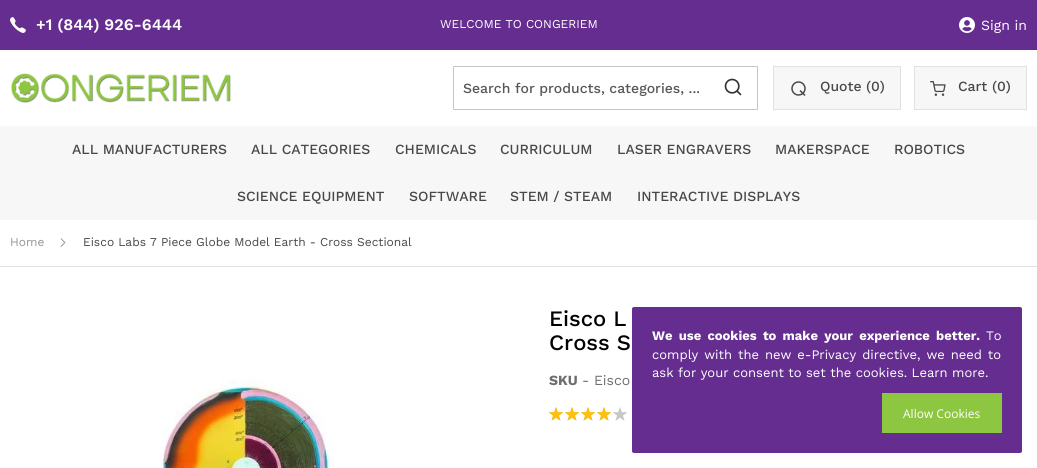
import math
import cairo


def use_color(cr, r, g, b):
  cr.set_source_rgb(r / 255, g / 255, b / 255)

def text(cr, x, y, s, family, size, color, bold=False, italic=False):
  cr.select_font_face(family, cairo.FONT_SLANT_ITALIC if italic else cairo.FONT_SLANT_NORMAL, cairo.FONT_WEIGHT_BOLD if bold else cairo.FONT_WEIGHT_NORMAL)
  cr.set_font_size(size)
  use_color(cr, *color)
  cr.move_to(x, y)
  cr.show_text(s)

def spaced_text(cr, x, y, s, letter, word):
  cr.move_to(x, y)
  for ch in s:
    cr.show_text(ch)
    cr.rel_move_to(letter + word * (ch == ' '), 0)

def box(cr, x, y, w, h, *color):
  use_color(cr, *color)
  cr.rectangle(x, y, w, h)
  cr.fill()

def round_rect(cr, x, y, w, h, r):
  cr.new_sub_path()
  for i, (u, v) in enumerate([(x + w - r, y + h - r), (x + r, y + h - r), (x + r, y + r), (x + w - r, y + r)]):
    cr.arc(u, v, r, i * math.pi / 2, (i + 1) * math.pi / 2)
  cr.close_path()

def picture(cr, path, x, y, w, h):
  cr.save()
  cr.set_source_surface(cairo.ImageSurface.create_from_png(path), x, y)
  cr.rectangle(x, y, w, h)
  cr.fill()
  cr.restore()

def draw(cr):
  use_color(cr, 255, 255, 255)
  cr.paint()
  box(cr, 0, 0, 1037, 50, 102, 45, 145)
  picture(cr, "img_01.png", 10, 17, 16, 16)
  picture(cr, "img_02.png", 959, 17, 16, 16)
  picture(cr, "img_03.png", 11, 73, 220, 30)
  round_rect(cr, 453.5, 66.5, 304, 43, 0.5)
  use_color(cr, 197, 197, 197)
  cr.set_line_width(1)
  cr.stroke()
  picture(cr, "img_04.png", 724, 78, 18, 18)
  use_color(cr, 247, 247, 247)
  cr.rectangle(773.5, 66.5, 127, 43)
  cr.fill_preserve()
  use_color(cr, 225, 225, 225)
  cr.stroke()
  cr.arc(798.5, 88.5, 6.5, 0, 2 * math.pi)
  use_color(cr, 72, 72, 72)
  cr.set_line_width(1.5)
  cr.stroke()
  cr.new_path()
  cr.move_to(800, 90.5)
  cr.line_to(805, 95.5)
  cr.stroke()
  use_color(cr, 247, 247, 247)
  cr.rectangle(914.5, 66.5, 112, 43)
  cr.fill_preserve()
  use_color(cr, 225, 225, 225)
  cr.set_line_width(1)
  cr.stroke()
  picture(cr, "img_05.png", 930, 81, 16, 15)
  box(cr, 0, 126, 1037, 94, 247, 247, 247)
  box(cr, 0, 266, 1037, 1, 225, 225, 225)
  picture(cr, "img_06.png", 60, 238, 6, 9)
  picture(cr, "img_07.png", 549, 407, 78, 14)
  picture(cr, "img_08.png", 549, 407, 62, 13)
  picture(cr, "img_09.png", 161, 377, 174, 91)
  use_color(cr, 102, 45, 145)
  round_rect(cr, 632, 307, 390, 146, 2)
  cr.fill()
  box(cr, 882, 393, 120, 40, 141, 198, 65)
  text(cr, 36, 30, "+1 (844) 926-6444", "Work Sans SemiBold", 16, (255, 255, 255))
  text(cr, 440, 28, "WELCOME TO CONGERIEM", "Work Sans", 12, (255, 255, 255))
  text(cr, 981, 30, "Sign in", "Work Sans", 14, (255, 255, 255))
  text(cr, 463, 93, "Search for products, categories, ...", "Work Sans Medium", 14, (87, 87, 87))
  text(cr, 820, 91, "Quote", "Work Sans Medium", 14, (72, 72, 72))
  text(cr, 866, 91, "(0)", "Work Sans Medium", 14, (72, 72, 72))
  text(cr, 958, 91, "Cart", "Work Sans Medium", 14, (72, 72, 72))
  text(cr, 992, 91, "(0)", "Work Sans Medium", 14, (72, 72, 72))
  text(cr, 72, 154, "ALL MANUFACTURERS", "Work Sans Medium", 14, (72, 72, 72))
  text(cr, 251, 154, "ALL CATEGORIES", "Work Sans Medium", 14, (72, 72, 72))
  text(cr, 395, 154, "CHEMICALS", "Work Sans Medium", 14, (72, 72, 72))
  text(cr, 500, 154, "CURRICULUM", "Work Sans Medium", 14, (72, 72, 72))
  text(cr, 617, 154, "LASER ENGRAVERS", "Work Sans Medium", 14, (72, 72, 72))
  text(cr, 775, 154, "MAKERSPACE", "Work Sans Medium", 14, (72, 72, 72))
  text(cr, 894, 154, "ROBOTICS", "Work Sans Medium", 14, (72, 72, 72))
  text(cr, 237, 201, "SCIENCE EQUIPMENT", "Work Sans Medium", 14, (72, 72, 72))
  text(cr, 409, 201, "SOFTWARE", "Work Sans Medium", 14, (72, 72, 72))
  text(cr, 510, 201, "STEM / STEAM", "Work Sans Medium", 14, (72, 72, 72))
  text(cr, 637, 201, "INTERACTIVE DISPLAYS", "Work Sans Medium", 14, (72, 72, 72))
  text(cr, 10, 246, "Home", "Work Sans", 12, (149, 149, 149))
  text(cr, 83, 246, "Eisco Labs 7 Piece Globe Model Earth - Cross Sectional", "Work Sans", 12, (72, 72, 72))
  text(cr, 549, 326, "Eisco L", "Work Sans Medium", 22, (0, 0, 0))
  text(cr, 549, 350, "Cross S", "Work Sans Medium", 22, (0, 0, 0))
  text(cr, 549, 385, "SKU", "Work Sans", 14, (110, 110, 110), bold=True)
  text(cr, 582, 385, "- Eisco", "Work Sans", 14, (110, 110, 110))
  cr.select_font_face("Work Sans", cairo.FONT_SLANT_NORMAL, cairo.FONT_WEIGHT_BOLD)
  cr.set_font_size(13)
  use_color(cr, 255, 255, 255)
  spaced_text(cr, 652, 340, "We use cookies to make your experience better.", 0, 2.5)
  text(cr, 986, 340, "To", "Work Sans", 13, (255, 255, 255))
  spaced_text(cr, 652, 359, "comply with the new e-Privacy directive, we need to", 0, 1.5)
  text(cr, 652, 377, "ask for your consent to set the cookies. Learn more.", "Work Sans", 13, (255, 255, 255))
  text(cr, 903, 418, "Allow Cookies", "Open Sans", 12, (255, 255, 255))


surface = cairo.ImageSurface(cairo.FORMAT_RGB24, 1037, 468)
cr = cairo.Context(surface)
options = cairo.FontOptions()
options.set_hint_metrics(cairo.HINT_METRICS_OFF)
options.set_hint_style(cairo.HINT_STYLE_NONE)
cr.set_font_options(options)
cr.set_miter_limit(4)
draw(cr)
surface.write_to_png("out.png")
